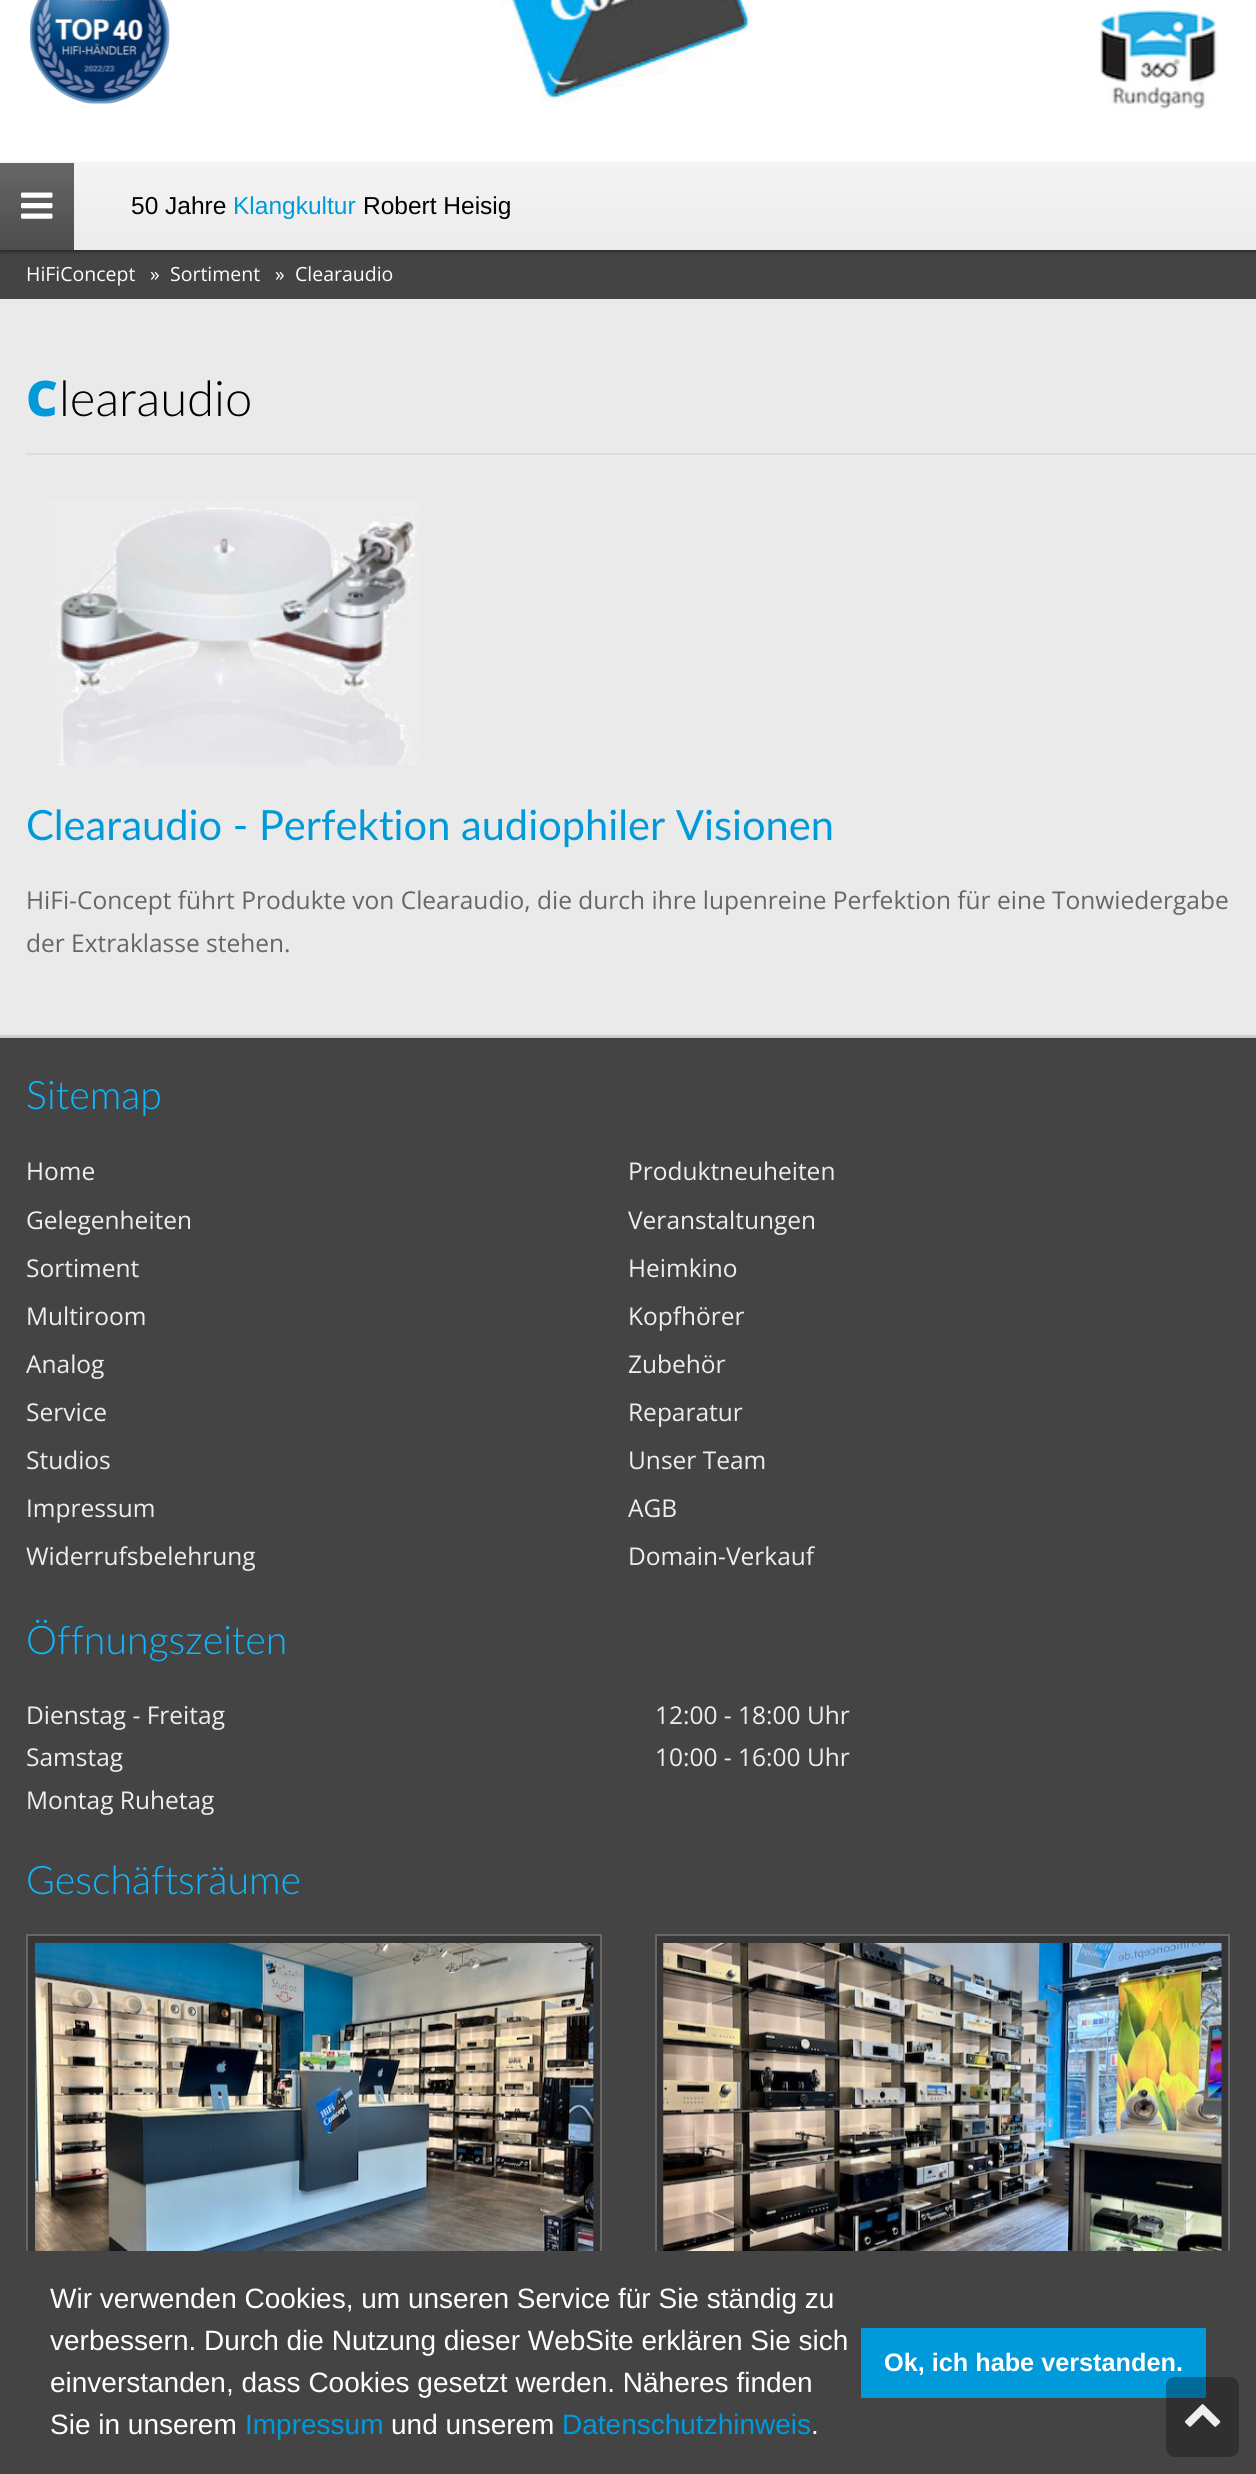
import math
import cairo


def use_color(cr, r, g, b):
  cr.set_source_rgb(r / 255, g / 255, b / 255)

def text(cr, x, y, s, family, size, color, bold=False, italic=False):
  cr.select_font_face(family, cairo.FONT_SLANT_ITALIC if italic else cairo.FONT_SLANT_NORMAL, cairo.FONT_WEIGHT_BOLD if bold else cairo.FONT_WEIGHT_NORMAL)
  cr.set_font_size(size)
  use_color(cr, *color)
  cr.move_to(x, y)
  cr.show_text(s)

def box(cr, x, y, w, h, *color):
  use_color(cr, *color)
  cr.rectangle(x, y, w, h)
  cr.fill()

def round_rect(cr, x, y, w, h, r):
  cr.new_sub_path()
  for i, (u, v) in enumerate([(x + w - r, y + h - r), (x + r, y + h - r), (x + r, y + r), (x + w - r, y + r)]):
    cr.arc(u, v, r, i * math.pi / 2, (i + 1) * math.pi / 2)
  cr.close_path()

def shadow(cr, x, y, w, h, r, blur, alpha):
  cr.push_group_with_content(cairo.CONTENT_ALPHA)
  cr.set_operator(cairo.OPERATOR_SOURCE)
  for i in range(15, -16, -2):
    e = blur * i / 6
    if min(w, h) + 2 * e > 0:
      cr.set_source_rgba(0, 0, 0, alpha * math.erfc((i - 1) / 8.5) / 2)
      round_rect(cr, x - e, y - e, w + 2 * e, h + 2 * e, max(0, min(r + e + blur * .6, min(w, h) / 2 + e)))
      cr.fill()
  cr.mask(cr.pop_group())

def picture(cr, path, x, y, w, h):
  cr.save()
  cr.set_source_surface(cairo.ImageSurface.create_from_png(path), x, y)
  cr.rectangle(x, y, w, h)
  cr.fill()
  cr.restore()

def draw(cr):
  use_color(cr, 234, 234, 234)
  cr.paint()
  box(cr, 0, 0, 1256, 163, 255, 255, 255)
  picture(cr, "img_01.png", 30, 0, 140, 104)
  picture(cr, "img_02.png", 501, 0, 251, 102)
  picture(cr, "img_03.png", 1100, 10, 117, 100)
  box(cr, 0, 250, 1256, 49, 68, 68, 68)
  use_color(cr, 0, 0, 0)
  shadow(cr, 0, 165, 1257, 87, 0, 2, 0.4)
  gradient = cairo.LinearGradient(628, 250, 628, 163)
  gradient.add_color_stop_rgba(0, 0.925, 0.925, 0.925, 1)
  gradient.add_color_stop_rgba(1, 0.957, 0.957, 0.957, 1)
  cr.set_source(gradient)
  cr.rectangle(74, 163, 1182, 87)
  cr.fill()
  gradient = cairo.LinearGradient(37, 250, 37, 163)
  gradient.add_color_stop_rgba(0, 0.302, 0.302, 0.302, 1)
  gradient.add_color_stop_rgba(1, 0.4, 0.4, 0.4, 1)
  cr.set_source(gradient)
  cr.rectangle(0, 163, 74, 87)
  cr.fill()
  picture(cr, "img_04.png", 21, 192, 32, 27)
  box(cr, 26, 453, 1230, 2, 221, 221, 221)
  picture(cr, "img_05.png", 49, 501, 370, 265)
  use_color(cr, 0, 0, 0)
  shadow(cr, 0, 1036, 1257, 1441, 0, 1, 0.3)
  box(cr, 0, 1038, 1256, 1213, 68, 68, 68)
  box(cr, 0, 1036, 1256, 2, 204, 204, 204)
  box(cr, 28, 1936, 572, 315, 54, 54, 54)
  cr.rectangle(27, 1935, 574, 330)
  use_color(cr, 102, 102, 102)
  cr.stroke()
  picture(cr, "img_06.png", 35, 1943, 559, 308)
  box(cr, 657, 1936, 571, 315, 54, 54, 54)
  cr.rectangle(656, 1935, 573, 330)
  use_color(cr, 102, 102, 102)
  cr.stroke()
  picture(cr, "img_07.png", 663, 1943, 559, 308)
  box(cr, 0, 2251, 1256, 223, 68, 68, 68)
  box(cr, 861, 2328, 345, 70, 0, 153, 218)
  cr.set_source_rgba(0, 0, 0, 0.3)
  round_rect(cr, 1166, 2377, 73, 80, 9)
  cr.fill()
  picture(cr, "img_08.png", 1185, 2404, 36, 23)
  text(cr, 131, 214, "50 Jahre", "Liberation Sans", 24.5, (0, 0, 0))
  text(cr, 233, 214, "Klangkultur", "Liberation Sans", 24.5, (0, 153, 218))
  text(cr, 363, 214, "Robert Heisig", "Liberation Sans", 24.5, (0, 0, 0))
  text(cr, 26, 281, "HiFiConcept", "Open Sans", 19.5, (255, 255, 255))
  text(cr, 150, 281, "»", "Open Sans", 19.5, (255, 255, 255))
  text(cr, 170, 281, "Sortiment", "Open Sans", 19.5, (255, 255, 255))
  text(cr, 275, 281, "»", "Open Sans", 19.5, (255, 255, 255))
  text(cr, 295, 281, "Clearaudio", "Open Sans", 19.5, (255, 255, 255))
  text(cr, 26, 416, "C", "Noto Sans Black", 49, (0, 153, 218))
  text(cr, 59, 416, "learaudio", "Lato Light", 49, (0, 0, 0))
  text(cr, 26, 840, "Clearaudio - Perfektion audiophiler Visionen", "Lato", 41.6, (0, 153, 218))
  text(cr, 26, 909, "HiFi-Concept führt Produkte von Clearaudio, die durch ihre lupenreine Perfektion für eine Tonwiedergabe", "Open Sans", 24.5, (102, 102, 102))
  text(cr, 26, 952, "der Extraklasse stehen.", "Open Sans", 24.5, (102, 102, 102))
  text(cr, 26, 1109, "Sitemap", "Lato Light", 39.25, (14, 183, 255))
  text(cr, 26, 1180, "Home", "Open Sans", 24.5, (238, 238, 238))
  text(cr, 628, 1180, "Produktneuheiten", "Open Sans", 24.5, (238, 238, 238))
  text(cr, 26, 1229, "Gelegenheiten", "Open Sans", 24.5, (238, 238, 238))
  text(cr, 628, 1229, "Veranstaltungen", "Open Sans", 24.5, (238, 238, 238))
  text(cr, 26, 1277, "Sortiment", "Open Sans", 24.5, (238, 238, 238))
  text(cr, 628, 1277, "Heimkino", "Open Sans", 24.5, (238, 238, 238))
  text(cr, 26, 1325, "Multiroom", "Open Sans", 24.5, (238, 238, 238))
  text(cr, 628, 1325, "Kopfhörer", "Open Sans", 24.5, (238, 238, 238))
  text(cr, 26, 1373, "Analog", "Open Sans", 24.5, (238, 238, 238))
  text(cr, 628, 1373, "Zubehör", "Open Sans", 24.5, (238, 238, 238))
  text(cr, 26, 1421, "Service", "Open Sans", 24.5, (238, 238, 238))
  text(cr, 628, 1421, "Reparatur", "Open Sans", 24.5, (238, 238, 238))
  text(cr, 26, 1469, "Studios", "Open Sans", 24.5, (238, 238, 238))
  text(cr, 628, 1469, "Unser Team", "Open Sans", 24.5, (238, 238, 238))
  text(cr, 26, 1517, "Impressum", "Open Sans", 24.5, (238, 238, 238))
  text(cr, 628, 1517, "AGB", "Open Sans", 24.5, (238, 238, 238))
  text(cr, 26, 1565, "Widerrufsbelehrung", "Open Sans", 24.5, (238, 238, 238))
  text(cr, 628, 1565, "Domain-Verkauf", "Open Sans", 24.5, (238, 238, 238))
  text(cr, 26, 1654, "Öffnungszeiten", "Lato Light", 39.25, (14, 183, 255))
  text(cr, 26, 1724, "Dienstag - Freitag", "Open Sans", 24.5, (238, 238, 238))
  text(cr, 655, 1724, "12:00 - 18:00 Uhr", "Open Sans", 24.5, (238, 238, 238))
  text(cr, 26, 1766, "Samstag", "Open Sans", 24.5, (238, 238, 238))
  text(cr, 655, 1766, "10:00 - 16:00 Uhr", "Open Sans", 24.5, (238, 238, 238))
  text(cr, 26, 1809, "Montag Ruhetag", "Open Sans", 24.5, (238, 238, 238))
  text(cr, 26, 1894, "Geschäftsräume", "Lato Light", 39.25, (14, 183, 255))
  text(cr, 50, 2308, "Wir verwenden Cookies, um unseren Service für Sie ständig zu", "Liberation Sans", 28, (255, 255, 255))
  text(cr, 50, 2350, "verbessern. Durch die Nutzung dieser WebSite erklären Sie sich", "Liberation Sans", 28, (255, 255, 255))
  text(cr, 50, 2392, "einverstanden, dass Cookies gesetzt werden. Näheres finden", "Liberation Sans", 28, (255, 255, 255))
  text(cr, 50, 2434, "Sie in unserem", "Liberation Sans", 28, (255, 255, 255))
  text(cr, 245, 2434, "Impressum", "Liberation Sans", 28, (0, 153, 218))
  text(cr, 391, 2434, "und unserem", "Liberation Sans", 28, (255, 255, 255))
  text(cr, 562, 2434, "Datenschutzhinweis", "Liberation Sans", 28, (0, 153, 218))
  text(cr, 811, 2434, ".", "Liberation Sans", 28, (255, 255, 255))
  text(cr, 884, 2371, "Ok, ich habe verstanden.", "Liberation Sans", 25.25, (255, 255, 255), bold=True)


surface = cairo.ImageSurface(cairo.FORMAT_RGB24, 1256, 2474)
cr = cairo.Context(surface)
options = cairo.FontOptions()
options.set_hint_metrics(cairo.HINT_METRICS_OFF)
options.set_hint_style(cairo.HINT_STYLE_NONE)
cr.set_font_options(options)
cr.set_miter_limit(4)
draw(cr)
surface.write_to_png("out.png")
